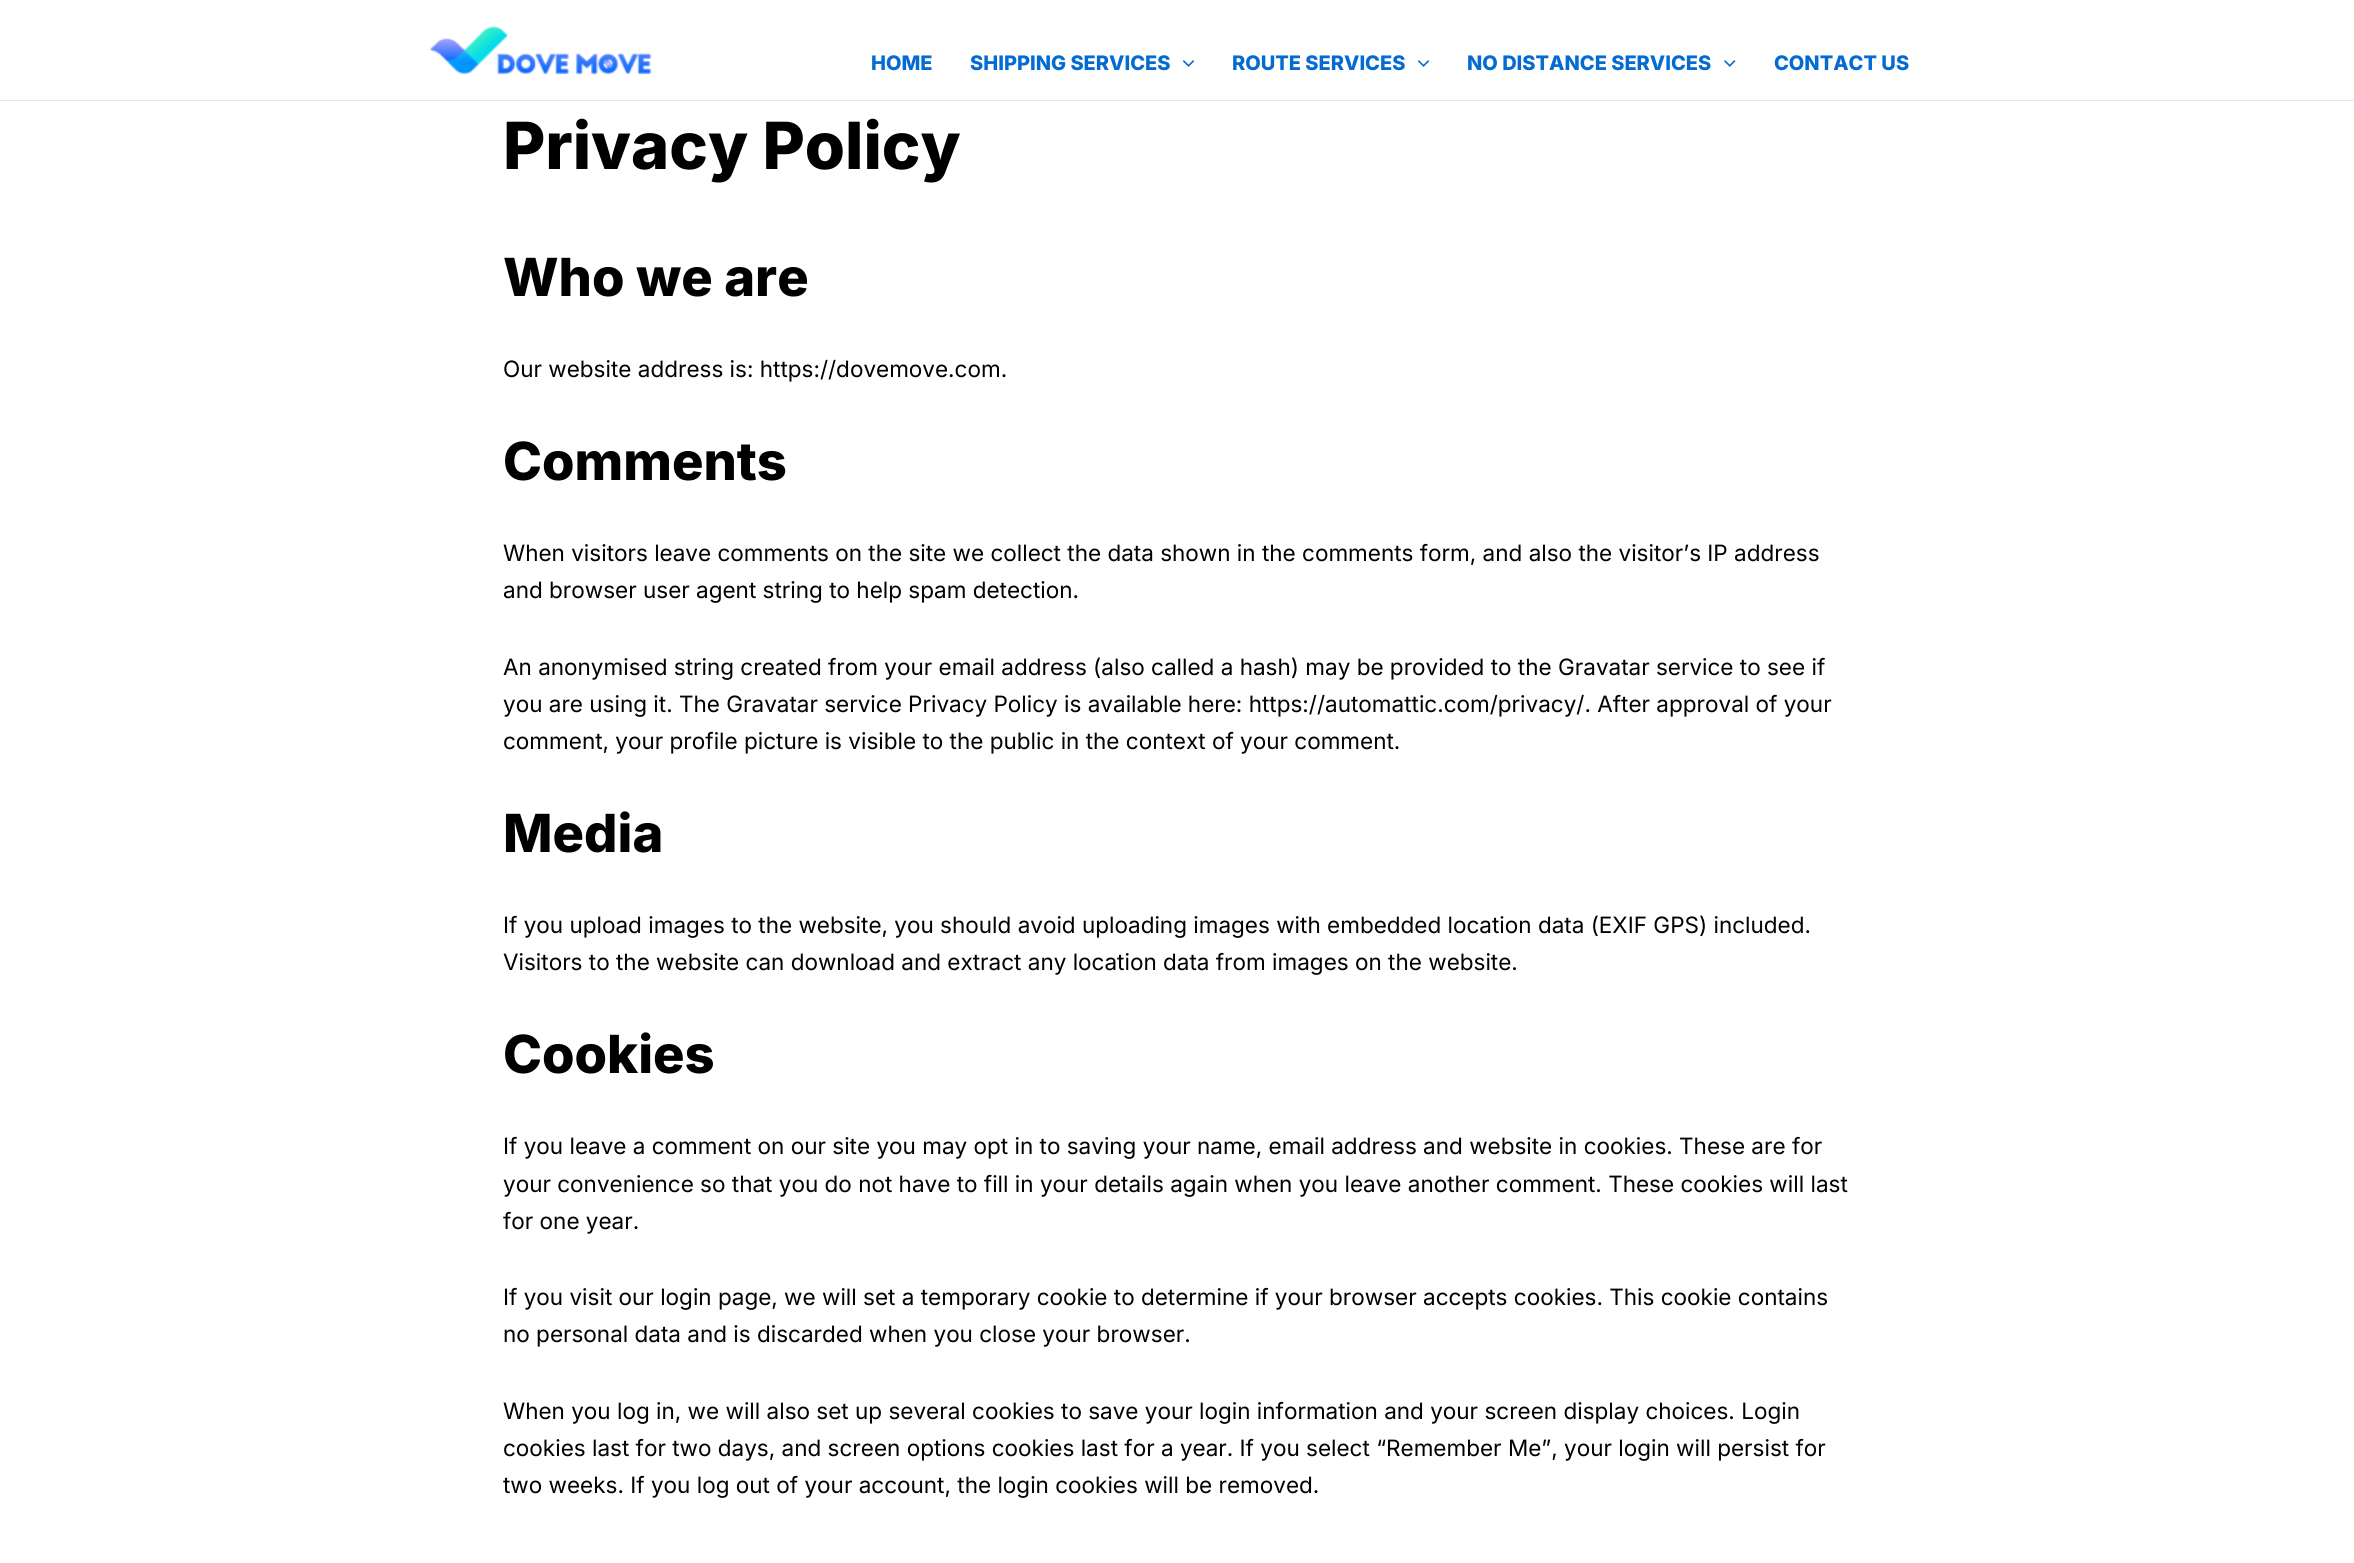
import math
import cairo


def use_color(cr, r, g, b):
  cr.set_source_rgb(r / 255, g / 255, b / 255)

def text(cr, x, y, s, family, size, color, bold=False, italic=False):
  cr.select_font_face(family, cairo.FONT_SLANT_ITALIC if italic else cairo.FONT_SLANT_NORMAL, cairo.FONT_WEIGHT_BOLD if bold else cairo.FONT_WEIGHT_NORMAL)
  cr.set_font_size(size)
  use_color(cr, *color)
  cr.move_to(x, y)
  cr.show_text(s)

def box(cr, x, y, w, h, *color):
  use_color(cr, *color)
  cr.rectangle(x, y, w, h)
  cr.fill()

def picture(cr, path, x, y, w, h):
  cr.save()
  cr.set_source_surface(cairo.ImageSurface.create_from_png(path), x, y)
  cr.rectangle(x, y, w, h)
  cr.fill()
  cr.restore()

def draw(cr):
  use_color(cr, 255, 255, 255)
  cr.paint()
  box(cr, 0, 100, 2354, 1, 226, 232, 240)
  picture(cr, "img_01.png", 429, 26, 223, 49)
  picture(cr, "img_02.png", 1183, 60, 12, 7)
  picture(cr, "img_02.png", 1418, 60, 12, 7)
  picture(cr, "img_03.png", 1724, 60, 12, 7)
  text(cr, 871, 70, "HOME", "Inter ExtraBold", 20, (4, 107, 210))
  text(cr, 970, 70, "SHIPPING SERVICES", "Inter ExtraBold", 20, (4, 107, 210))
  text(cr, 1232, 70, "ROUTE SERVICES", "Inter ExtraBold", 20, (4, 107, 210))
  text(cr, 1467, 70, "NO DISTANCE SERVICES", "Inter ExtraBold", 20, (4, 107, 210))
  text(cr, 1774, 70, "CONTACT US", "Inter ExtraBold", 20, (4, 107, 210))
  text(cr, 503, 169, "Privacy Policy", "Inter ExtraBold", 65, (0, 0, 0))
  text(cr, 503, 296, "Who we are", "Inter ExtraBold", 52.5, (0, 0, 0))
  text(cr, 503, 377, "Our website address is: https://dovemove.com.", "Inter", 22.5, (0, 0, 0))
  text(cr, 503, 480, "Comments", "Inter ExtraBold", 52.5, (0, 0, 0))
  text(cr, 503, 561, "When visitors leave comments on the site we collect the data shown in the comments form, and also the visitor’s IP address", "Inter", 22.5, (0, 0, 0))
  text(cr, 503, 598, "and browser user agent string to help spam detection.", "Inter", 22.5, (0, 0, 0))
  text(cr, 503, 675, "An anonymised string created from your email address (also called a hash) may be provided to the Gravatar service to see if", "Inter", 22.5, (0, 0, 0))
  text(cr, 503, 712, "you are using it. The Gravatar service Privacy Policy is available here: https://automattic.com/privacy/. After approval of your", "Inter", 22.5, (0, 0, 0))
  text(cr, 503, 749, "comment, your profile picture is visible to the public in the context of your comment.", "Inter", 22.5, (0, 0, 0))
  text(cr, 503, 852, "Media", "Inter ExtraBold", 52.5, (0, 0, 0))
  text(cr, 503, 933, "If you upload images to the website, you should avoid uploading images with embedded location data (EXIF GPS) included.", "Inter", 22.5, (0, 0, 0))
  text(cr, 503, 970, "Visitors to the website can download and extract any location data from images on the website.", "Inter", 22.5, (0, 0, 0))
  text(cr, 503, 1073, "Cookies", "Inter ExtraBold", 52.5, (0, 0, 0))
  text(cr, 503, 1154, "If you leave a comment on our site you may opt in to saving your name, email address and website in cookies. These are for", "Inter", 22.5, (0, 0, 0))
  text(cr, 503, 1192, "your convenience so that you do not have to fill in your details again when you leave another comment. These cookies will last", "Inter", 22.5, (0, 0, 0))
  text(cr, 503, 1229, "for one year.", "Inter", 22.5, (0, 0, 0))
  text(cr, 503, 1305, "If you visit our login page, we will set a temporary cookie to determine if your browser accepts cookies. This cookie contains", "Inter", 22.5, (0, 0, 0))
  text(cr, 503, 1342, "no personal data and is discarded when you close your browser.", "Inter", 22.5, (0, 0, 0))
  text(cr, 503, 1419, "When you log in, we will also set up several cookies to save your login information and your screen display choices. Login", "Inter", 22.5, (0, 0, 0))
  text(cr, 503, 1456, "cookies last for two days, and screen options cookies last for a year. If you select “Remember Me”, your login will persist for", "Inter", 22.5, (0, 0, 0))
  text(cr, 503, 1493, "two weeks. If you log out of your account, the login cookies will be removed.", "Inter", 22.5, (0, 0, 0))


surface = cairo.ImageSurface(cairo.FORMAT_RGB24, 2354, 1563)
cr = cairo.Context(surface)
options = cairo.FontOptions()
options.set_hint_metrics(cairo.HINT_METRICS_OFF)
options.set_hint_style(cairo.HINT_STYLE_NONE)
cr.set_font_options(options)
cr.set_miter_limit(4)
draw(cr)
surface.write_to_png("out.png")
